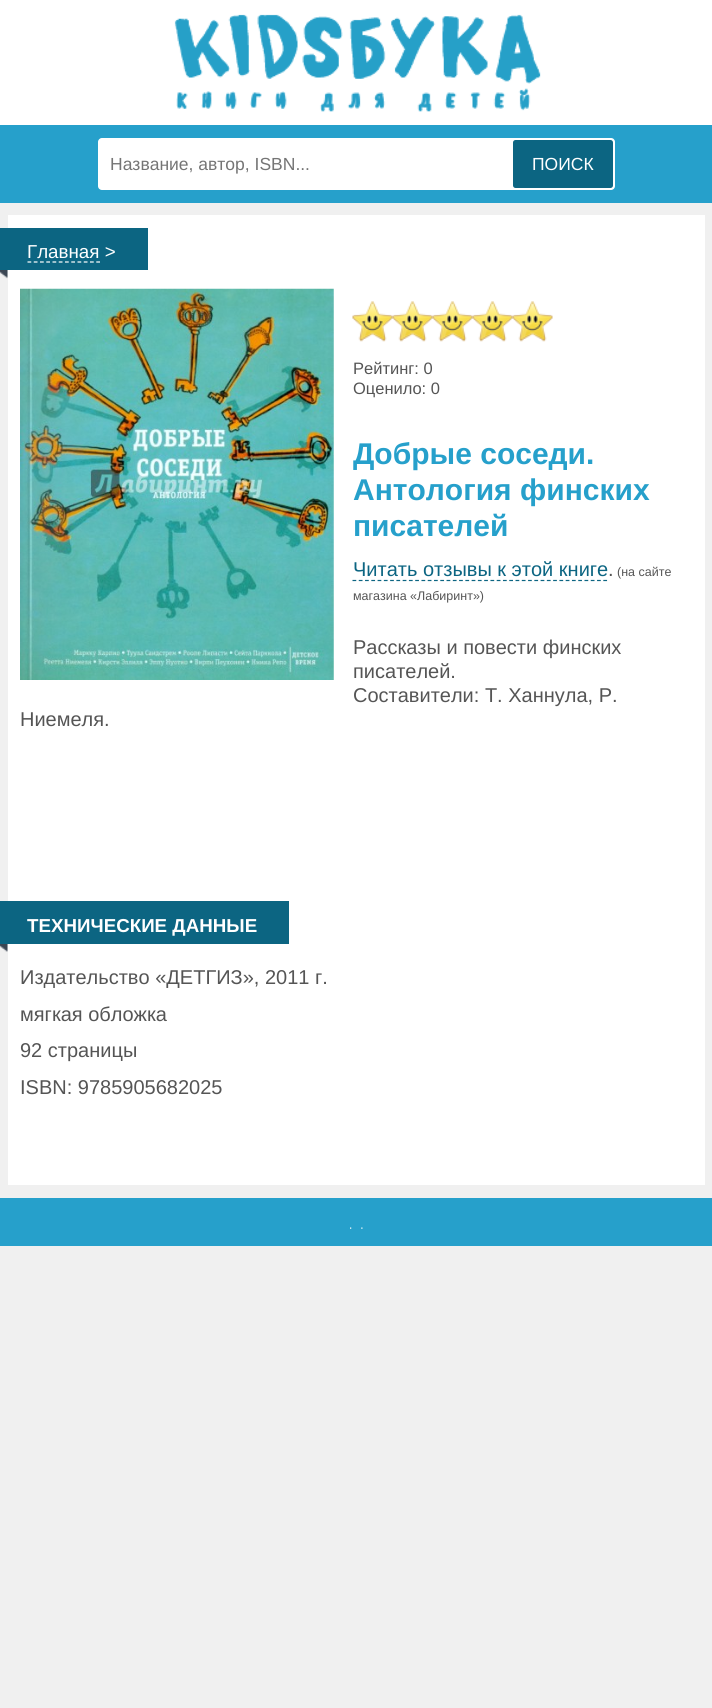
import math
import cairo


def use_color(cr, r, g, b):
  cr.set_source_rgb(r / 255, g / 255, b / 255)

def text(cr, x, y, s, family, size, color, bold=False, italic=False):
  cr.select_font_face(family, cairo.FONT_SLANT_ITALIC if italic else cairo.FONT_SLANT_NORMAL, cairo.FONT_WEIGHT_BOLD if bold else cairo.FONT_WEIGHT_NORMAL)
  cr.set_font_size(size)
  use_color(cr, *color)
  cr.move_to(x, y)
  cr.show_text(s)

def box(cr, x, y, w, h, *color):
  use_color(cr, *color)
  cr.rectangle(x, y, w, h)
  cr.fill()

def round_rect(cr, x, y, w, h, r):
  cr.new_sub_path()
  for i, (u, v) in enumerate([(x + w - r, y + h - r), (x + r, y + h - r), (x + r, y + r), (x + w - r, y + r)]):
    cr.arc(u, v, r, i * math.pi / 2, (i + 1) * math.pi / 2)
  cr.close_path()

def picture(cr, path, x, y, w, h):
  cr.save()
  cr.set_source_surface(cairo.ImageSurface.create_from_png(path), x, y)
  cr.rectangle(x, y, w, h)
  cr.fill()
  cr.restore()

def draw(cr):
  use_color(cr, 240, 240, 240)
  cr.paint()
  box(cr, 0, 0, 712, 125, 255, 255, 255)
  picture(cr, "img_01.png", 174, 14, 367, 98)
  box(cr, 0, 125, 712, 78, 38, 160, 203)
  use_color(cr, 255, 255, 255)
  round_rect(cr, 98, 138, 517, 52, 4)
  cr.fill()
  use_color(cr, 12, 101, 130)
  round_rect(cr, 513, 140, 100, 48, 2.5)
  cr.fill()
  box(cr, 8, 215, 697, 970, 255, 255, 255)
  picture(cr, "img_02.png", 0, 270, 8, 9)
  box(cr, 0, 228, 148, 42, 12, 101, 130)
  cr.new_path()
  cr.move_to(27.5, 262)
  cr.line_to(100, 262)
  use_color(cr, 255, 255, 255)
  cr.set_line_width(1.2)
  cr.set_dash([3.75, 2.5])
  cr.stroke()
  picture(cr, "img_03.png", 20, 288, 314, 392)
  picture(cr, "img_04.png", 352, 301, 41, 41)
  picture(cr, "img_05.png", 392, 301, 41, 41)
  picture(cr, "img_06.png", 432, 301, 41, 41)
  picture(cr, "img_06.png", 472, 301, 41, 41)
  picture(cr, "img_06.png", 512, 301, 41, 41)
  cr.new_path()
  cr.move_to(352.5, 580.5)
  cr.line_to(607.5, 580.5)
  use_color(cr, 12, 101, 130)
  cr.set_dash([3.75, 2.52])
  cr.stroke()
  picture(cr, "img_07.png", 0, 944, 8, 8)
  box(cr, 0, 901, 289, 43, 12, 101, 130)
  box(cr, 0, 1198, 712, 48, 38, 160, 203)
  picture(cr, "img_08.png", 350, 1227, 2, 2)
  picture(cr, "img_09.png", 361, 1227, 2, 2)
  text(cr, 110, 170, "Название, автор, ISBN...", "Liberation Sans", 17.5, (117, 117, 117))
  text(cr, 532, 170, "ПОИСК", "Liberation Sans", 17.5, (255, 255, 255))
  text(cr, 27, 258, "Главная >", "Liberation Sans", 18.75, (255, 255, 255))
  text(cr, 353, 374, "Рейтинг: 0", "Liberation Sans", 16.5, (85, 85, 85))
  text(cr, 353, 394, "Оценило: 0", "Liberation Sans", 16.5, (85, 85, 85))
  text(cr, 353, 464, "Добрые соседи.", "Liberation Sans", 30, (38, 160, 203), bold=True)
  text(cr, 353, 500, "Антология финских", "Liberation Sans", 30, (38, 160, 203), bold=True)
  text(cr, 353, 536, "писателей", "Liberation Sans", 30, (38, 160, 203), bold=True)
  text(cr, 353, 576, "Читать отзывы к этой книге", "Liberation Sans", 20, (12, 101, 130))
  text(cr, 608, 576, ".", "Liberation Sans", 20, (85, 85, 85))
  text(cr, 617, 576, "(на сайте", "Liberation Sans", 12.5, (85, 85, 85))
  text(cr, 353, 600, "магазина «Лабиринт»)", "Liberation Sans", 12.5, (85, 85, 85))
  text(cr, 353, 654, "Рассказы и повести финских", "Liberation Sans", 20, (85, 85, 85))
  text(cr, 353, 678, "писателей.", "Liberation Sans", 20, (85, 85, 85))
  text(cr, 353, 702, "Составители: Т. Ханнула, Р.", "Liberation Sans", 20, (85, 85, 85))
  text(cr, 20, 726, "Ниемеля.", "Liberation Sans", 20, (85, 85, 85))
  text(cr, 27, 932, "ТЕХНИЧЕСКИЕ ДАННЫЕ", "Liberation Sans", 18.75, (255, 255, 255), bold=True)
  text(cr, 20, 984, "Издательство «ДЕТГИЗ», 2011 г.", "Liberation Sans", 20, (85, 85, 85))
  text(cr, 20, 1021, "мягкая обложка", "Liberation Sans", 20, (85, 85, 85))
  text(cr, 20, 1057, "92 страницы", "Liberation Sans", 20, (85, 85, 85))
  text(cr, 20, 1094, "ISBN: 9785905682025", "Liberation Sans", 20, (85, 85, 85))


surface = cairo.ImageSurface(cairo.FORMAT_RGB24, 712, 1708)
cr = cairo.Context(surface)
options = cairo.FontOptions()
options.set_hint_metrics(cairo.HINT_METRICS_OFF)
options.set_hint_style(cairo.HINT_STYLE_NONE)
cr.set_font_options(options)
cr.set_miter_limit(4)
draw(cr)
surface.write_to_png("out.png")
